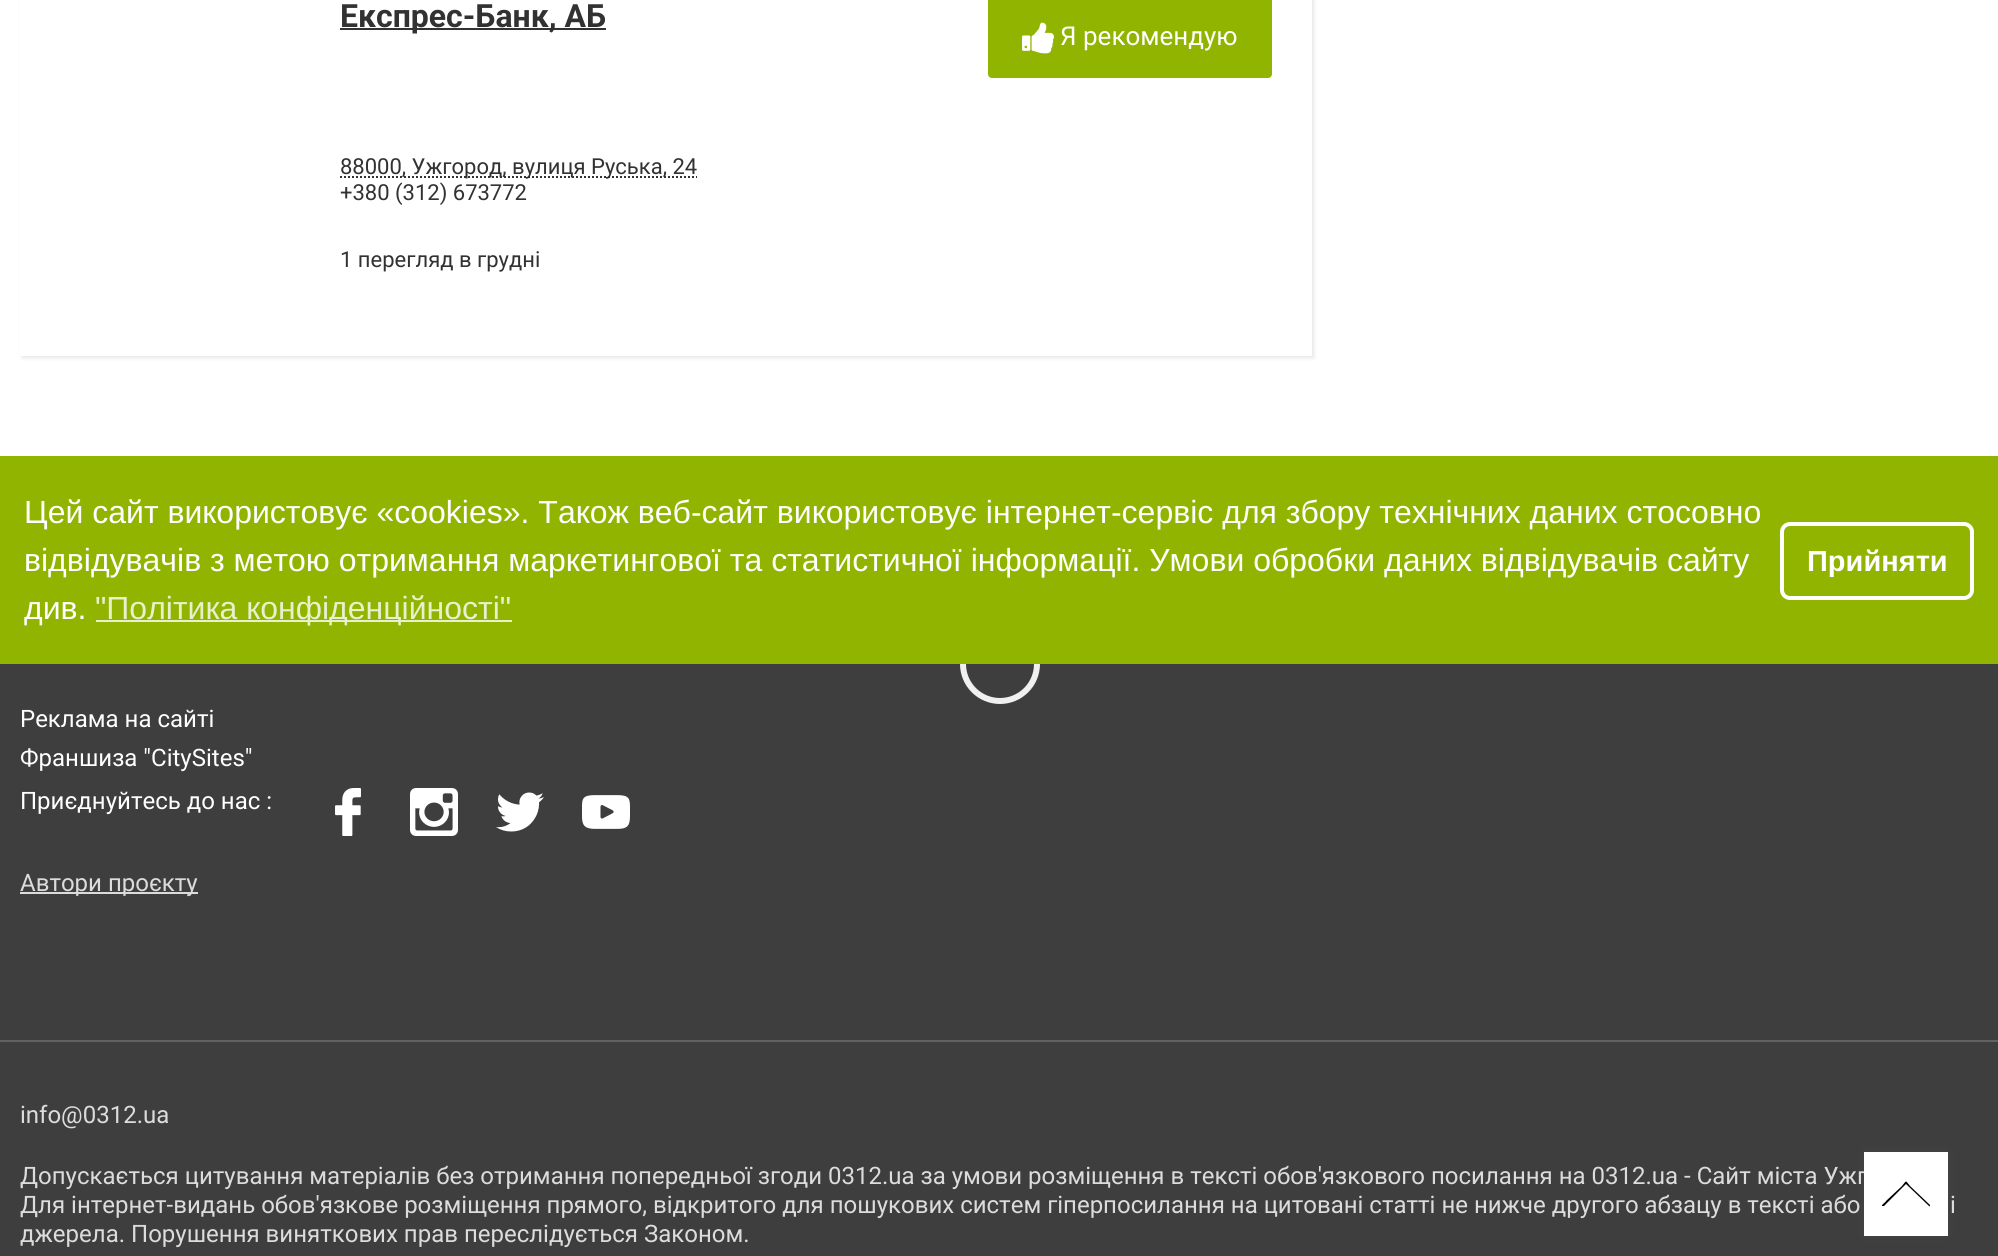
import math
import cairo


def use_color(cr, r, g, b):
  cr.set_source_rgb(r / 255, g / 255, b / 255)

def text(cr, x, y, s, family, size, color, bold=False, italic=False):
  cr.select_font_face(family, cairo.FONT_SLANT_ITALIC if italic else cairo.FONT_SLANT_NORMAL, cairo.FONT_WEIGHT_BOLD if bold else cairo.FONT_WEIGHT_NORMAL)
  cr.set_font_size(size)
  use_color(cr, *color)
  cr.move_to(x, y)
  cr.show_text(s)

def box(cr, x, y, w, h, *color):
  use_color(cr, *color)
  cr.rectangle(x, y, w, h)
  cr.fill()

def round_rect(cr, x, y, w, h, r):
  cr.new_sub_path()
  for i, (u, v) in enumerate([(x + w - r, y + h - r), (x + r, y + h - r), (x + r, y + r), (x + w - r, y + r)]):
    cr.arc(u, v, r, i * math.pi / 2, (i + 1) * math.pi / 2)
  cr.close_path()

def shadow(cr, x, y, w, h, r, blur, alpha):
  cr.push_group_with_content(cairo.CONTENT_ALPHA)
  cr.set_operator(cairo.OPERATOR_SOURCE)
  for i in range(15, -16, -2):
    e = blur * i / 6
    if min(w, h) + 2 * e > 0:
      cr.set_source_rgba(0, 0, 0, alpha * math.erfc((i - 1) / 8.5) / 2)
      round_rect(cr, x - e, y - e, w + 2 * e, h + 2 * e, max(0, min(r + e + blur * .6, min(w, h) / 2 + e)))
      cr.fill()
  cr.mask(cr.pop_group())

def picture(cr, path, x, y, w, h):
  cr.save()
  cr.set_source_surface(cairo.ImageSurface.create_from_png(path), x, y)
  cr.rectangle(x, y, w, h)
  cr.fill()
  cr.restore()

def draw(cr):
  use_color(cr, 255, 255, 255)
  cr.paint()
  cr.save()
  cr.set_fill_rule(cairo.FILL_RULE_EVEN_ODD)
  cr.new_path()
  cr.move_to(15, 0)
  cr.line_to(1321, 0)
  cr.line_to(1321, 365)
  cr.line_to(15, 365)
  cr.close_path()
  cr.move_to(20, -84)
  cr.line_to(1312, -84)
  cr.line_to(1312, 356)
  cr.line_to(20, 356)
  cr.close_path()
  cr.clip()
  use_color(cr, 90, 90, 90)
  shadow(cr, 22, -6, 1292, 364, 0, 2, 0.15)
  cr.restore()
  box(cr, 340, 28, 266, 2, 50, 50, 50)
  cr.new_path()
  cr.move_to(340, 177)
  cr.line_to(697, 177)
  cr.set_dash([2, 2])
  cr.stroke()
  use_color(cr, 144, 180, 0)
  round_rect(cr, 988, -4, 284, 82, 4)
  cr.fill()
  picture(cr, "img_01.png", 1022, 22, 32, 32)
  box(cr, 0, 664, 1998, 592, 63, 62, 62)
  cr.arc(1000, 664, 37, 0, 2 * math.pi)
  cr.fill_preserve()
  use_color(cr, 240, 240, 240)
  cr.set_line_width(6)
  cr.set_dash([])
  cr.stroke()
  box(cr, 0, 456, 1998, 208, 144, 180, 0)
  box(cr, 96, 620, 416, 2, 233, 240, 204)
  round_rect(cr, 1782, 524, 190, 74, 8)
  use_color(cr, 255, 255, 255)
  cr.set_line_width(4)
  cr.stroke()
  picture(cr, "img_02.png", 335, 788, 26, 48)
  picture(cr, "img_03.png", 410, 788, 48, 48)
  picture(cr, "img_04.png", 496, 792, 48, 40)
  picture(cr, "img_05.png", 582, 795, 48, 34)
  box(cr, 20, 892, 178, 2, 220, 220, 220)
  box(cr, 0, 1040, 1998, 2, 99, 98, 98)
  use_color(cr, 99, 99, 99)
  shadow(cr, 1864, 1152, 84, 84, 0, 3, 0.25)
  text(cr, 340, 27, "Експрес-Банк, АБ", "Roboto", 32, (50, 50, 50), bold=True)
  text(cr, 340, 174, "88000, Ужгород, вулиця Руська, 24", "Roboto", 22, (50, 50, 50))
  text(cr, 340, 200, "+380 (312) 673772", "Roboto", 22, (50, 50, 50))
  text(cr, 1060, 45, "Я рекомендую", "Roboto", 26, (255, 255, 255))
  text(cr, 340, 267, "1 перегляд в грудні", "Roboto", 22, (50, 50, 50))
  text(cr, 24, 523, "Цей сайт використовує «cookies». Також веб-сайт використовує інтернет-сервіс для збору технічних даних стосовно", "Liberation Sans", 32, (255, 255, 255))
  text(cr, 24, 571, "відвідувачів з метою отримання маркетингової та статистичної інформації. Умови обробки даних відвідувачів сайту", "Liberation Sans", 32, (255, 255, 255))
  text(cr, 24, 619, "див.", "Liberation Sans", 32, (255, 255, 255))
  text(cr, 95, 619, "\"Політика конфіденційності\"", "Liberation Sans", 32, (233, 240, 204))
  text(cr, 1807, 571, "Прийняти", "Liberation Sans", 29, (255, 255, 255), bold=True)
  text(cr, 20, 727, "Реклама на сайті", "Roboto", 24, (255, 255, 255))
  text(cr, 20, 766, "Франшиза \"CitySites\"", "Roboto", 24, (255, 255, 255))
  text(cr, 20, 809, "Приєднуйтесь до нас :", "Roboto", 24, (255, 255, 255))
  text(cr, 20, 891, "Автори проєкту", "Roboto", 24, (220, 220, 220))
  text(cr, 20, 1123, "info@0312.ua", "Roboto", 24, (220, 220, 220))
  text(cr, 20, 1184, "Допускається цитування матеріалів без отримання попередньої згоди 0312.ua за умови розміщення в тексті обов'язкового посилання на 0312.ua - Сайт міста Ужг", "Roboto", 24, (220, 220, 220))
  text(cr, 20, 1213, "Для інтернет-видань обов'язкове розміщення прямого, відкритого для пошукових систем гіперпосилання на цитовані статті не нижче другого абзацу в тексті або", "Roboto", 24, (220, 220, 220))
  text(cr, 1950, 1213, "і", "Roboto", 24, (220, 220, 220))
  text(cr, 20, 1242, "джерела. Порушення виняткових прав переслідується Законом.", "Roboto", 24, (220, 220, 220))
  box(cr, 1864, 1152, 84, 84, 255, 255, 255)
  use_color(cr, 0, 0, 0)
  cr.new_path()
  cr.move_to(1930, 1205)
  cr.line_to(1910, 1186)
  cr.curve_to(1905, 1180, 1907, 1180, 1902, 1186)
  cr.line_to(1886, 1201)
  cr.curve_to(1886, 1202, 1881, 1205, 1882, 1206)
  cr.line_to(1884, 1206)
  cr.line_to(1906, 1184)
  cr.line_to(1929, 1206)
  cr.curve_to(1930, 1207, 1930, 1206, 1930, 1205)
  cr.close_path()
  cr.fill()


surface = cairo.ImageSurface(cairo.FORMAT_RGB24, 1998, 1256)
cr = cairo.Context(surface)
options = cairo.FontOptions()
options.set_hint_metrics(cairo.HINT_METRICS_OFF)
options.set_hint_style(cairo.HINT_STYLE_NONE)
cr.set_font_options(options)
cr.set_miter_limit(4)
draw(cr)
surface.write_to_png("out.png")
